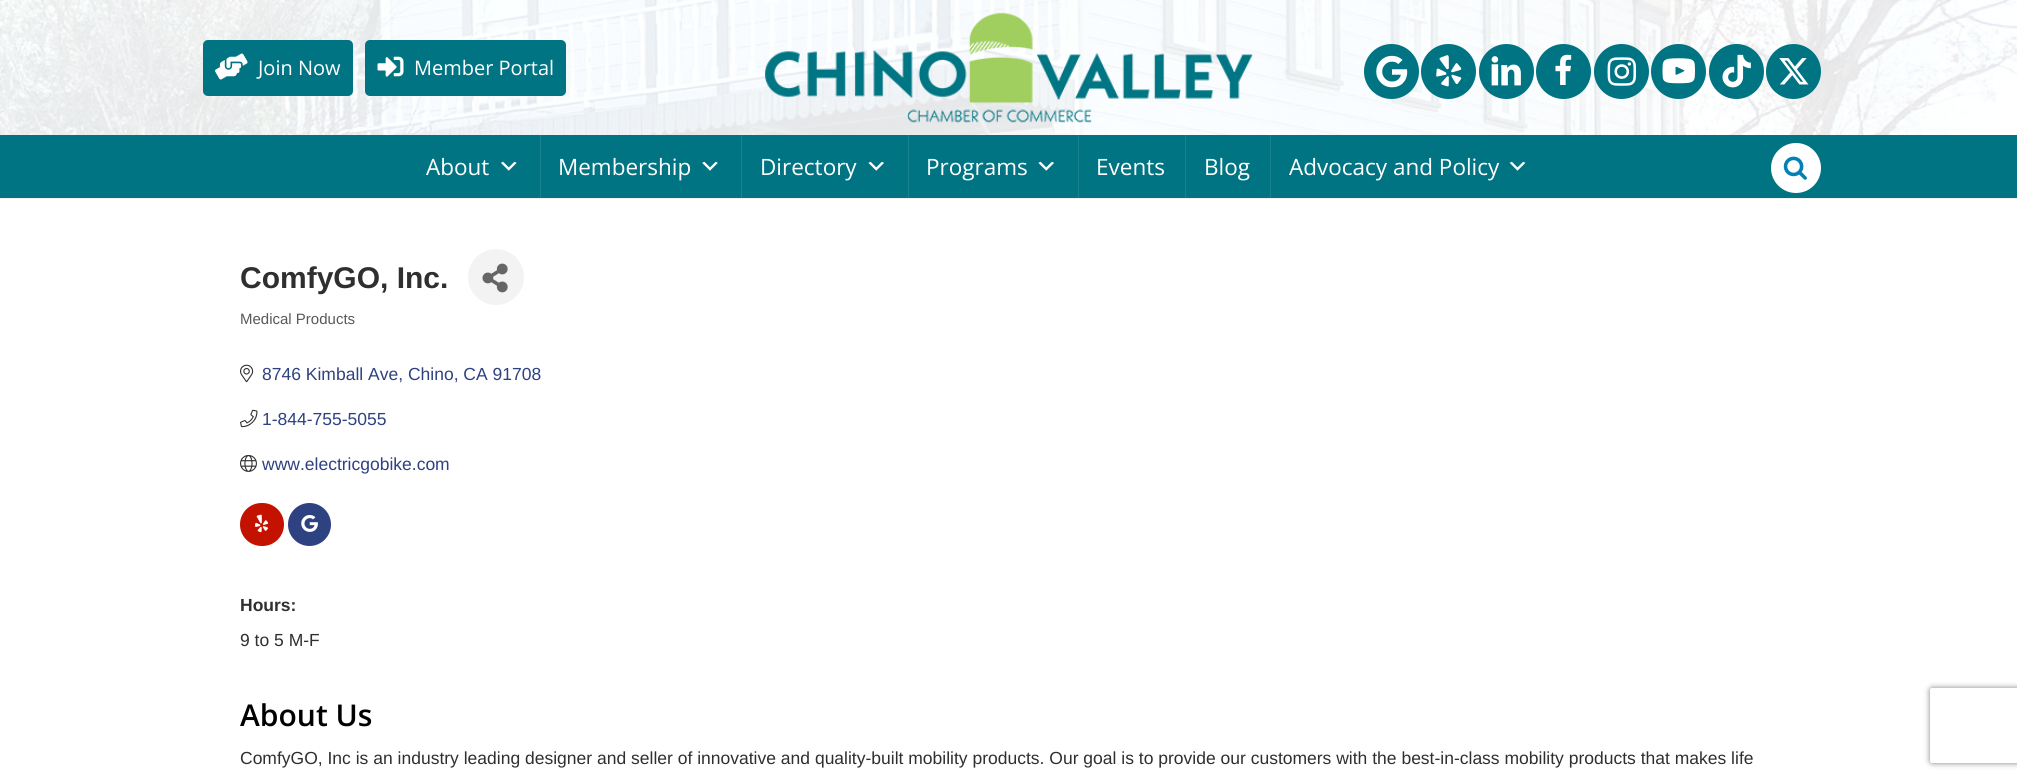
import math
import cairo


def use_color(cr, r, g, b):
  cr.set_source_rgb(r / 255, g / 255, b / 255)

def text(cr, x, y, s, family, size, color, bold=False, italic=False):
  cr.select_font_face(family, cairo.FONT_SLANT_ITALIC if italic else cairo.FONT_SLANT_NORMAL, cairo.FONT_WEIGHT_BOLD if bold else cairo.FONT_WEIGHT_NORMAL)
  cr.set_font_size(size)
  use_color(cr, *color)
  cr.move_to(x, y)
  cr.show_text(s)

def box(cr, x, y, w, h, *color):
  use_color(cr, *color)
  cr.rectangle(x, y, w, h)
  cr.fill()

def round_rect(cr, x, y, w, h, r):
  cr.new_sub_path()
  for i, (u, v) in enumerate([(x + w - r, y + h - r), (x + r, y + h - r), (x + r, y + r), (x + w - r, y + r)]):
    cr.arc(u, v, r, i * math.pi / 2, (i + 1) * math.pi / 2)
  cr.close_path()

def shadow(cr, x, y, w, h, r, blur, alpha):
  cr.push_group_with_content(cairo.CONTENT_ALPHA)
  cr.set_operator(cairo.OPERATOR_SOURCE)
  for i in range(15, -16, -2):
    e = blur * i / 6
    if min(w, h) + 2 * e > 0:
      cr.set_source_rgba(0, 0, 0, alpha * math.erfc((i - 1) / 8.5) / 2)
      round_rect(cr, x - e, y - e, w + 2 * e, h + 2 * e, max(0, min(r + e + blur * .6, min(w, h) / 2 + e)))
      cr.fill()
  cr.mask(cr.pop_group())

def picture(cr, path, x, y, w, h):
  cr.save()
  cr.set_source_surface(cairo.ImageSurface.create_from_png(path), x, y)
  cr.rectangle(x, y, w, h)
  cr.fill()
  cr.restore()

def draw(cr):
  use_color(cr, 242, 242, 242)
  cr.paint()
  picture(cr, "img_01.png", 0, 0, 2017, 135)
  use_color(cr, 0, 116, 130)
  round_rect(cr, 203, 40, 150, 56, 5)
  cr.fill()
  picture(cr, "img_02.png", 215, 53, 33, 27)
  round_rect(cr, 365, 40, 201, 56, 5)
  cr.fill()
  picture(cr, "img_03.png", 377, 56, 27, 21)
  picture(cr, "img_04.png", 765, 12, 488, 111)
  cr.arc(1391.5, 71.5, 27.5, 0, 2 * math.pi)
  cr.fill()
  picture(cr, "img_05.png", 1376, 55, 32, 33)
  cr.arc(1448.5, 71.5, 27.5, 0, 2 * math.pi)
  cr.fill()
  picture(cr, "img_06.png", 1436, 55, 26, 32)
  cr.arc(1506.5, 71.5, 27.5, 0, 2 * math.pi)
  cr.fill()
  picture(cr, "img_07.png", 1491, 56, 30, 30)
  cr.arc(1563.5, 71.5, 27.5, 0, 2 * math.pi)
  cr.fill()
  picture(cr, "img_08.png", 1555, 54, 17, 31)
  cr.arc(1621.5, 71.5, 27.5, 0, 2 * math.pi)
  cr.fill()
  picture(cr, "img_09.png", 1607, 57, 29, 29)
  cr.arc(1678.5, 71.5, 27.5, 0, 2 * math.pi)
  cr.fill()
  picture(cr, "img_10.png", 1662, 58, 33, 26)
  cr.arc(1736.5, 71.5, 27.5, 0, 2 * math.pi)
  cr.fill()
  picture(cr, "img_11.png", 1722, 54, 29, 34)
  cr.arc(1793.5, 71.5, 27.5, 0, 2 * math.pi)
  cr.fill()
  picture(cr, "img_12.png", 1779, 58, 30, 27)
  box(cr, 0, 135, 2017, 63, 0, 116, 130)
  picture(cr, "img_13.png", 501, 161, 16, 10)
  box(cr, 540, 135, 1, 63, 26, 130, 143)
  picture(cr, "img_14.png", 702, 161, 16, 10)
  box(cr, 741, 135, 1, 63, 26, 130, 143)
  picture(cr, "img_15.png", 868, 161, 16, 10)
  box(cr, 908, 135, 1, 63, 26, 130, 143)
  picture(cr, "img_15.png", 1038, 161, 16, 10)
  box(cr, 1078, 135, 1, 63, 26, 130, 143)
  box(cr, 1185, 135, 1, 63, 26, 130, 143)
  box(cr, 1270, 135, 1, 63, 26, 130, 143)
  picture(cr, "img_16.png", 1509, 161, 17, 10)
  use_color(cr, 255, 255, 255)
  cr.arc(1796, 168, 25, 0, 2 * math.pi)
  cr.fill()
  picture(cr, "img_17.png", 1783, 156, 24, 24)
  box(cr, 0, 199, 2017, 581, 255, 255, 255)
  use_color(cr, 243, 243, 243)
  cr.arc(496, 277, 28, 0, 2 * math.pi)
  cr.fill()
  picture(cr, "img_18.png", 482, 263, 26, 30)
  picture(cr, "img_19.png", 240, 364, 14, 19)
  picture(cr, "img_20.png", 240, 409, 18, 19)
  picture(cr, "img_21.png", 240, 455, 17, 17)
  use_color(cr, 196, 18, 0)
  round_rect(cr, 240, 503, 44, 43, 21.5)
  cr.fill()
  picture(cr, "img_22.png", 255, 514, 14, 19)
  use_color(cr, 46, 65, 129)
  cr.arc(309.5, 524.5, 21.5, 0, 2 * math.pi)
  cr.fill()
  picture(cr, "img_23.png", 301, 515, 17, 17)
  cr.save()
  cr.set_fill_rule(cairo.FILL_RULE_EVEN_ODD)
  cr.new_path()
  cr.move_to(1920, 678)
  cr.line_to(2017, 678)
  cr.line_to(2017, 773)
  cr.line_to(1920, 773)
  cr.close_path()
  cr.move_to(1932.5, 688)
  cr.line_to(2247.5, 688)
  cr.curve_to(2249, 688, 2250, 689, 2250, 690.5)
  cr.line_to(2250, 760.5)
  cr.curve_to(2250, 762, 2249, 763, 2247.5, 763)
  cr.line_to(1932.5, 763)
  cr.curve_to(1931, 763, 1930, 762, 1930, 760.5)
  cr.line_to(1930, 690.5)
  cr.curve_to(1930, 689, 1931, 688, 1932.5, 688)
  cr.close_path()
  cr.clip()
  use_color(cr, 128, 128, 128)
  shadow(cr, 1930, 688, 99, 75, 2.5, 3, 1)
  cr.restore()
  text(cr, 258, 75, "Join Now", "Open Sans", 20, (255, 255, 255))
  text(cr, 414, 75, "Member Portal", "Open Sans", 20, (255, 255, 255))
  text(cr, 426, 175, "About", "Open Sans", 22.5, (255, 255, 255))
  text(cr, 558, 175, "Membership", "Open Sans", 22.5, (255, 255, 255))
  text(cr, 760, 175, "Directory", "Open Sans", 22.5, (255, 255, 255))
  text(cr, 926, 175, "Programs", "Open Sans", 22.5, (255, 255, 255))
  text(cr, 1096, 175, "Events", "Open Sans", 22.5, (255, 255, 255))
  text(cr, 1204, 175, "Blog", "Open Sans", 22.5, (255, 255, 255))
  text(cr, 1289, 175, "Advocacy and Policy", "Open Sans", 22.5, (255, 255, 255))
  text(cr, 240, 288, "ComfyGO, Inc.", "Liberation Sans", 30, (47, 47, 47), bold=True)
  text(cr, 240, 324, "Medical Products", "Liberation Sans", 15, (89, 89, 89))
  text(cr, 262, 380, "8746 Kimball Ave, Chino, CA 91708", "Liberation Sans", 17.5, (46, 65, 129))
  text(cr, 262, 425, "1-844-755-5055", "Liberation Sans", 17.5, (46, 65, 129))
  text(cr, 262, 470, "www.electricgobike.com", "Liberation Sans", 17.5, (46, 65, 129))
  text(cr, 240, 611, "Hours:", "Liberation Sans", 17.5, (47, 47, 47), bold=True)
  text(cr, 240, 646, "9 to 5 M-F", "Liberation Sans", 17.5, (47, 47, 47))
  text(cr, 240, 726, "About Us", "Open Sans SemiBold", 30, (0, 0, 0))
  text(cr, 240, 764, "ComfyGO, Inc is an industry leading designer and seller of innovative and quality-built mobility products. Our goal is to provide our customers with the best-in-class mobility products that makes life", "Liberation Sans", 17.5, (47, 47, 47))


surface = cairo.ImageSurface(cairo.FORMAT_RGB24, 2017, 780)
cr = cairo.Context(surface)
options = cairo.FontOptions()
options.set_hint_metrics(cairo.HINT_METRICS_OFF)
options.set_hint_style(cairo.HINT_STYLE_NONE)
cr.set_font_options(options)
cr.set_miter_limit(4)
draw(cr)
surface.write_to_png("out.png")
